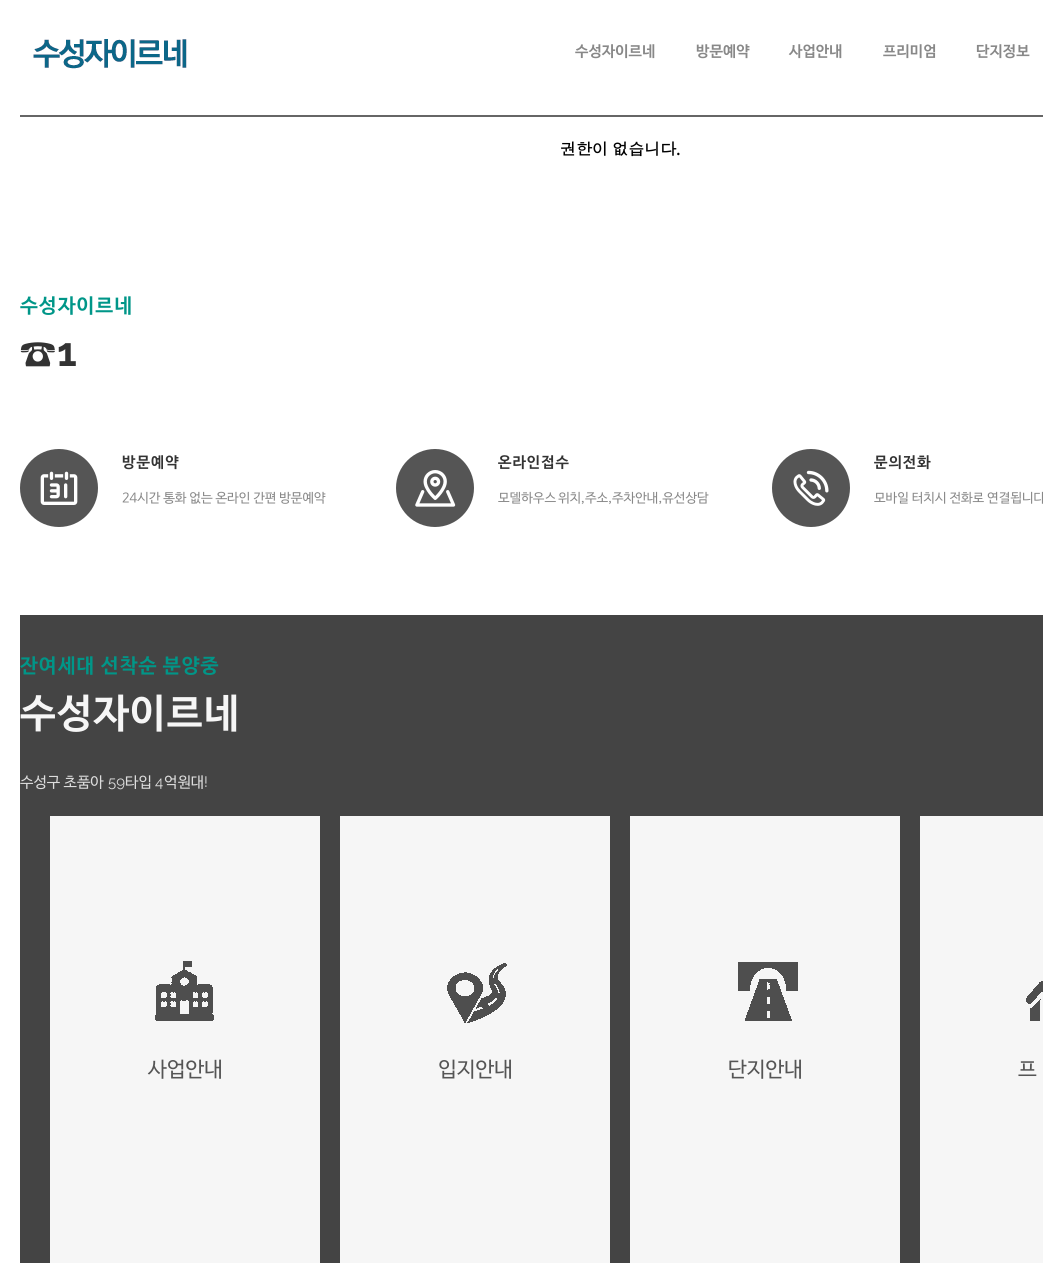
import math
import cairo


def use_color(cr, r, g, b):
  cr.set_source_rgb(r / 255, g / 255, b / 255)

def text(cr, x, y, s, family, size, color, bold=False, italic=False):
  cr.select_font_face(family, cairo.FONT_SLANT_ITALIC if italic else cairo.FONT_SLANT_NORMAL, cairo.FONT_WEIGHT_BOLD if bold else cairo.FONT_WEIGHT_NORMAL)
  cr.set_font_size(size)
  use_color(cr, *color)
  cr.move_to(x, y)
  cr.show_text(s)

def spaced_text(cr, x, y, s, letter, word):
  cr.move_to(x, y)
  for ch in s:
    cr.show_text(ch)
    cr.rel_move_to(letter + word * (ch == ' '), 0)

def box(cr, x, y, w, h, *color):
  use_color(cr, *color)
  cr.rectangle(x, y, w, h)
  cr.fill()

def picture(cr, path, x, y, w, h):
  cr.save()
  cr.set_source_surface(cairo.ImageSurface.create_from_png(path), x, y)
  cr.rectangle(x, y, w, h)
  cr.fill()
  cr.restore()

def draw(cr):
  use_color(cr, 255, 255, 255)
  cr.paint()
  picture(cr, "img_01.png", 33, 39, 154, 30)
  box(cr, 20, 115, 1023, 2, 102, 102, 102)
  use_color(cr, 85, 85, 85)
  cr.arc(59, 488, 39, 0, 2 * math.pi)
  cr.fill()
  picture(cr, "img_02.png", 40, 471, 38, 34)
  cr.arc(435, 488, 39, 0, 2 * math.pi)
  cr.fill()
  picture(cr, "img_03.png", 415, 470, 41, 37)
  cr.arc(811, 488, 39, 0, 2 * math.pi)
  cr.fill()
  picture(cr, "img_04.png", 793, 470, 36, 36)
  box(cr, 20, 615, 1023, 648, 68, 68, 68)
  box(cr, 50, 816, 270, 447, 246, 246, 246)
  picture(cr, "img_05.png", 155, 961, 59, 60)
  box(cr, 340, 816, 270, 447, 246, 246, 246)
  picture(cr, "img_06.png", 447, 963, 60, 60)
  box(cr, 630, 816, 270, 447, 246, 246, 246)
  picture(cr, "img_07.png", 738, 962, 60, 59)
  box(cr, 920, 816, 123, 447, 246, 246, 246)
  picture(cr, "img_08.png", 1026, 981, 17, 40)
  text(cr, 575, 56, "수성자이르네", "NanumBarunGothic", 15, (136, 136, 136), bold=True)
  text(cr, 696, 56, "방문예약", "NanumBarunGothic", 15, (136, 136, 136), bold=True)
  text(cr, 789, 56, "사업안내", "NanumBarunGothic", 15, (136, 136, 136), bold=True)
  text(cr, 883, 56, "프리미엄", "NanumBarunGothic", 15, (136, 136, 136), bold=True)
  text(cr, 976, 56, "단지정보", "NanumBarunGothic", 15, (136, 136, 136), bold=True)
  cr.select_font_face("Dotum", cairo.FONT_SLANT_NORMAL, cairo.FONT_WEIGHT_BOLD)
  cr.set_font_size(16)
  use_color(cr, 0, 0, 0)
  spaced_text(cr, 560, 155, "권한이 없습니다", 0, -1)
  text(cr, 676, 155, ".", "Open Sans", 16, (0, 0, 0), bold=True)
  cr.select_font_face("NanumBarunGothic", cairo.FONT_SLANT_NORMAL, cairo.FONT_WEIGHT_BOLD)
  cr.set_font_size(20)
  use_color(cr, 0, 150, 136)
  spaced_text(cr, 20, 312, "수성자이르네", 1, 0)
  cr.set_font_size(40)
  use_color(cr, 51, 51, 51)
  spaced_text(cr, 20, 366, "☎", 1, 0)
  cr.select_font_face("Raleway", cairo.FONT_SLANT_NORMAL, cairo.FONT_WEIGHT_BOLD)
  spaced_text(cr, 57, 366, "1", 1, 0)
  cr.select_font_face("NanumBarunGothic", cairo.FONT_SLANT_NORMAL, cairo.FONT_WEIGHT_BOLD)
  cr.set_font_size(15)
  spaced_text(cr, 122, 467, "방문예약", 1, 0)
  text(cr, 122, 502, "24시간 통화 없는 온라인 간편 방문예약", "NanumBarunGothic", 13, (136, 136, 136))
  cr.select_font_face("NanumBarunGothic", cairo.FONT_SLANT_NORMAL, cairo.FONT_WEIGHT_BOLD)
  cr.set_font_size(15)
  use_color(cr, 51, 51, 51)
  spaced_text(cr, 498, 467, "온라인접수", 1, 0)
  cr.select_font_face("NanumBarunGothic")
  cr.set_font_size(13)
  use_color(cr, 136, 136, 136)
  spaced_text(cr, 498, 502, "모델하우스 위치,주소,주차안내,유선상담", 0, -1)
  cr.select_font_face("NanumBarunGothic", cairo.FONT_SLANT_NORMAL, cairo.FONT_WEIGHT_BOLD)
  cr.set_font_size(15)
  use_color(cr, 51, 51, 51)
  spaced_text(cr, 874, 467, "문의전화", 1, 0)
  text(cr, 874, 502, "모바일 터치시 전화로 연결됩니다", "NanumBarunGothic", 13, (136, 136, 136))
  cr.select_font_face("NanumBarunGothic", cairo.FONT_SLANT_NORMAL, cairo.FONT_WEIGHT_BOLD)
  cr.set_font_size(20)
  use_color(cr, 0, 150, 136)
  spaced_text(cr, 20, 672, "잔여세대 선착순 분양중", 1, 0)
  cr.set_font_size(40)
  use_color(cr, 246, 246, 246)
  spaced_text(cr, 20, 726, "수성자이르네", 1, 0)
  text(cr, 20, 787, "수성구 초품아", "NanumBarunGothic", 15, (221, 221, 221))
  text(cr, 108, 787, "59", "Raleway", 15, (221, 221, 221))
  text(cr, 125, 787, "타입", "NanumBarunGothic", 15, (221, 221, 221))
  text(cr, 155, 787, "4", "Raleway", 15, (221, 221, 221))
  text(cr, 164, 787, "억원대", "NanumBarunGothic", 15, (221, 221, 221))
  text(cr, 204, 787, "!", "Raleway", 15, (221, 221, 221))
  text(cr, 148, 1076, "사업안내", "NanumBarunGothic", 21, (85, 85, 85))
  text(cr, 438, 1076, "입지안내", "NanumBarunGothic", 21, (85, 85, 85))
  text(cr, 728, 1076, "단지안내", "NanumBarunGothic", 21, (85, 85, 85))
  text(cr, 1018, 1076, "프", "NanumBarunGothic", 21, (85, 85, 85))


surface = cairo.ImageSurface(cairo.FORMAT_RGB24, 1043, 1263)
cr = cairo.Context(surface)
options = cairo.FontOptions()
options.set_hint_metrics(cairo.HINT_METRICS_OFF)
options.set_hint_style(cairo.HINT_STYLE_NONE)
cr.set_font_options(options)
cr.set_miter_limit(4)
draw(cr)
surface.write_to_png("out.png")
